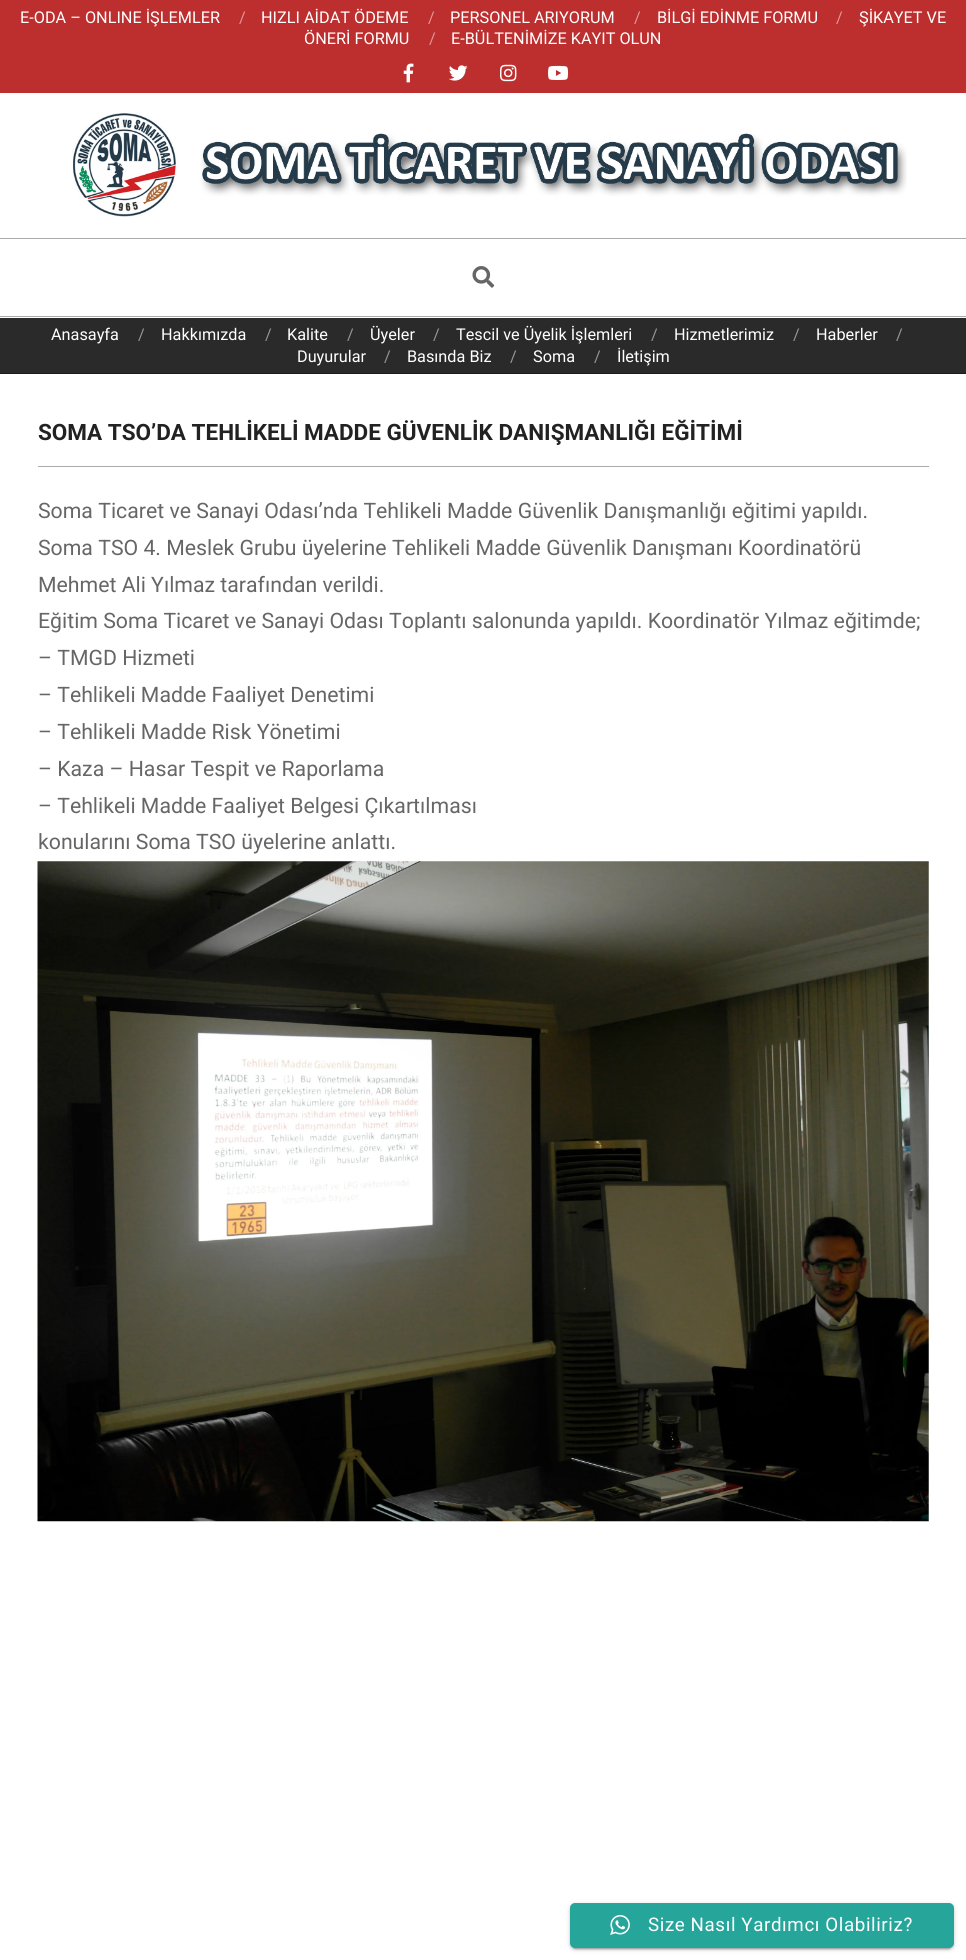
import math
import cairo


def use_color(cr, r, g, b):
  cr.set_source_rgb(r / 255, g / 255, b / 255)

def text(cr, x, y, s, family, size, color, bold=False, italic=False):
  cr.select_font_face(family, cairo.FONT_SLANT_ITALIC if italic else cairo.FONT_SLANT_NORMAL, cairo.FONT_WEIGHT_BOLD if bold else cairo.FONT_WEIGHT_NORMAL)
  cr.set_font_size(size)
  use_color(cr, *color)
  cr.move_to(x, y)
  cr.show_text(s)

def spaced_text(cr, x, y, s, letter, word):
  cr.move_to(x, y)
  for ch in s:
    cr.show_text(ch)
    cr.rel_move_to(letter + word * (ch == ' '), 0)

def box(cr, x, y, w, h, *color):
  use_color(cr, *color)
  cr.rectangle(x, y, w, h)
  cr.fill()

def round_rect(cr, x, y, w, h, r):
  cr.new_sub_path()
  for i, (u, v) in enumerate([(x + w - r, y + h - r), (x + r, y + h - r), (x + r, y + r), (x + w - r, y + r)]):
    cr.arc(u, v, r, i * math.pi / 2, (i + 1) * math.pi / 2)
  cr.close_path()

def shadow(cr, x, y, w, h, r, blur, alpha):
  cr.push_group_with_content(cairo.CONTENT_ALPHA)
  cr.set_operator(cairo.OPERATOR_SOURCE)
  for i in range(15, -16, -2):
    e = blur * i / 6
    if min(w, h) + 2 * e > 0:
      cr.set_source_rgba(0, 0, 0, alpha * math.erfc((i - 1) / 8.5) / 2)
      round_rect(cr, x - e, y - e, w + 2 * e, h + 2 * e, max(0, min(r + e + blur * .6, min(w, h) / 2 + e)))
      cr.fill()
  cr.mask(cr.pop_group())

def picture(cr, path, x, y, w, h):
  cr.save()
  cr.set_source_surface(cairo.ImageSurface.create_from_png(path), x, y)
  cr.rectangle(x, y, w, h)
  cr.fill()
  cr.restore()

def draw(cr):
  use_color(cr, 255, 255, 255)
  cr.paint()
  box(cr, 0, 0, 966, 93, 189, 46, 46)
  picture(cr, "img_01.png", 403, 63, 11, 20)
  picture(cr, "img_02.png", 449, 65, 19, 16)
  picture(cr, "img_03.png", 500, 64, 17, 18)
  picture(cr, "img_04.png", 548, 65, 21, 15)
  box(cr, 0, 316, 966, 1, 171, 171, 171)
  picture(cr, "img_05.png", 72, 113, 835, 104)
  box(cr, 0, 238, 966, 1, 171, 171, 171)
  picture(cr, "img_06.png", 472, 266, 23, 22)
  box(cr, 0, 318, 966, 55, 42, 42, 42)
  box(cr, 0, 373, 966, 1, 28, 28, 28)
  box(cr, 38, 466, 891, 1, 171, 171, 171)
  picture(cr, "img_07.png", 37, 861, 892, 661)
  use_color(cr, 0, 0, 0)
  shadow(cr, 573, 1909, 378, 40, 2.5, 0.5, 0.2)
  shadow(cr, 570, 1904, 384, 45, 5, 3, 0.12)
  shadow(cr, 570, 1905, 384, 45, 5, 1, 0.14)
  use_color(cr, 38, 166, 154)
  round_rect(cr, 570, 1903, 384, 45, 5)
  cr.fill()
  picture(cr, "img_08.png", 610, 1915, 20, 20)
  text(cr, 20, 23, "E-ODA – ONLINE İŞLEMLER", "Roboto", 16.25, (255, 255, 255))
  text(cr, 239, 23, "/", "Roboto", 16.25, (222, 151, 151))
  text(cr, 261, 23, "HIZLI AİDAT ÖDEME", "Roboto", 16.25, (255, 255, 255))
  text(cr, 428, 23, "/", "Roboto", 16.25, (222, 151, 151))
  text(cr, 859, 23, "ŞİKAYET VE", "Roboto", 16.25, (255, 255, 255))
  text(cr, 304, 44, "ÖNERİ FORMU", "Roboto", 16.25, (255, 255, 255))
  text(cr, 429, 44, "/", "Roboto", 16.25, (222, 151, 151))
  text(cr, 450, 23, "PERSONEL ARIYORUM", "Roboto", 16.25, (255, 255, 255))
  text(cr, 634, 23, "/", "Roboto", 16.25, (222, 151, 151))
  text(cr, 657, 23, "BİLGİ EDİNME FORMU", "Roboto", 16.25, (255, 255, 255))
  text(cr, 836, 23, "/", "Roboto", 16.25, (222, 151, 151))
  text(cr, 451, 44, "E-BÜLTENİMİZE KAYIT OLUN", "Roboto", 16.25, (255, 255, 255))
  text(cr, 51, 340, "Anasayfa", "Roboto", 16.25, (255, 255, 255))
  text(cr, 138, 340, "/", "Roboto", 16.25, (149, 149, 149))
  text(cr, 161, 340, "Hakkımızda", "Roboto", 16.25, (255, 255, 255))
  text(cr, 265, 340, "/", "Roboto", 16.25, (149, 149, 149))
  text(cr, 287, 340, "Kalite", "Roboto", 16.25, (255, 255, 255))
  text(cr, 347, 340, "/", "Roboto", 16.25, (149, 149, 149))
  text(cr, 370, 340, "Üyeler", "Roboto", 16.25, (255, 255, 255))
  text(cr, 433, 340, "/", "Roboto", 16.25, (149, 149, 149))
  text(cr, 456, 340, "Tescil ve Üyelik İşlemleri", "Roboto", 16.25, (255, 255, 255))
  text(cr, 651, 340, "/", "Roboto", 16.25, (149, 149, 149))
  text(cr, 674, 340, "Hizmetlerimiz", "Roboto", 16.25, (255, 255, 255))
  text(cr, 793, 340, "/", "Roboto", 16.25, (149, 149, 149))
  text(cr, 816, 340, "Haberler", "Roboto", 16.25, (255, 255, 255))
  text(cr, 896, 340, "/", "Roboto", 16.25, (149, 149, 149))
  text(cr, 297, 362, "Duyurular", "Roboto", 16.25, (255, 255, 255))
  text(cr, 384, 362, "/", "Roboto", 16.25, (149, 149, 149))
  text(cr, 407, 362, "Basında Biz", "Roboto", 16.25, (255, 255, 255))
  text(cr, 510, 362, "/", "Roboto", 16.25, (149, 149, 149))
  text(cr, 533, 362, "Soma", "Roboto", 16.25, (255, 255, 255))
  text(cr, 594, 362, "/", "Roboto", 16.25, (149, 149, 149))
  text(cr, 617, 362, "İletişim", "Roboto", 16.25, (255, 255, 255))
  text(cr, 38, 440, "SOMA TSO’DA TEHLİKELİ MADDE GÜVENLİK DANIŞMANLIĞI EĞİTİMİ", "Roboto", 22.5, (34, 34, 34), bold=True)
  text(cr, 38, 518, "Soma Ticaret ve Sanayi Odası’nda Tehlikeli Madde Güvenlik Danışmanlığı eğitimi yapıldı.", "Roboto", 21.25, (102, 102, 102))
  text(cr, 38, 555, "Soma TSO 4. Meslek Grubu üyelerine Tehlikeli Madde Güvenlik Danışmanı Koordinatörü", "Roboto", 21.25, (102, 102, 102))
  text(cr, 38, 592, "Mehmet Ali Yılmaz tarafından verildi.", "Roboto", 21.25, (102, 102, 102))
  text(cr, 38, 628, "Eğitim Soma Ticaret ve Sanayi Odası Toplantı salonunda yapıldı. Koordinatör Yılmaz eğitimde;", "Roboto", 21.25, (102, 102, 102))
  text(cr, 38, 665, "– TMGD Hizmeti", "Roboto", 21.25, (102, 102, 102))
  text(cr, 38, 702, "– Tehlikeli Madde Faaliyet Denetimi", "Roboto", 21.25, (102, 102, 102))
  text(cr, 38, 739, "– Tehlikeli Madde Risk Yönetimi", "Roboto", 21.25, (102, 102, 102))
  text(cr, 38, 776, "– Kaza – Hasar Tespit ve Raporlama", "Roboto", 21.25, (102, 102, 102))
  text(cr, 38, 813, "– Tehlikeli Madde Faaliyet Belgesi Çıkartılması", "Roboto", 21.25, (102, 102, 102))
  text(cr, 38, 849, "konularını Soma TSO üyelerine anlattı.", "Roboto", 21.25, (102, 102, 102))
  cr.set_font_size(18.75)
  use_color(cr, 255, 255, 255)
  spaced_text(cr, 648, 1931, "Size Nasıl Yardımcı Olabiliriz?", 0.6, 0)


surface = cairo.ImageSurface(cairo.FORMAT_RGB24, 966, 1960)
cr = cairo.Context(surface)
options = cairo.FontOptions()
options.set_hint_metrics(cairo.HINT_METRICS_OFF)
options.set_hint_style(cairo.HINT_STYLE_NONE)
cr.set_font_options(options)
cr.set_miter_limit(4)
draw(cr)
surface.write_to_png("out.png")
